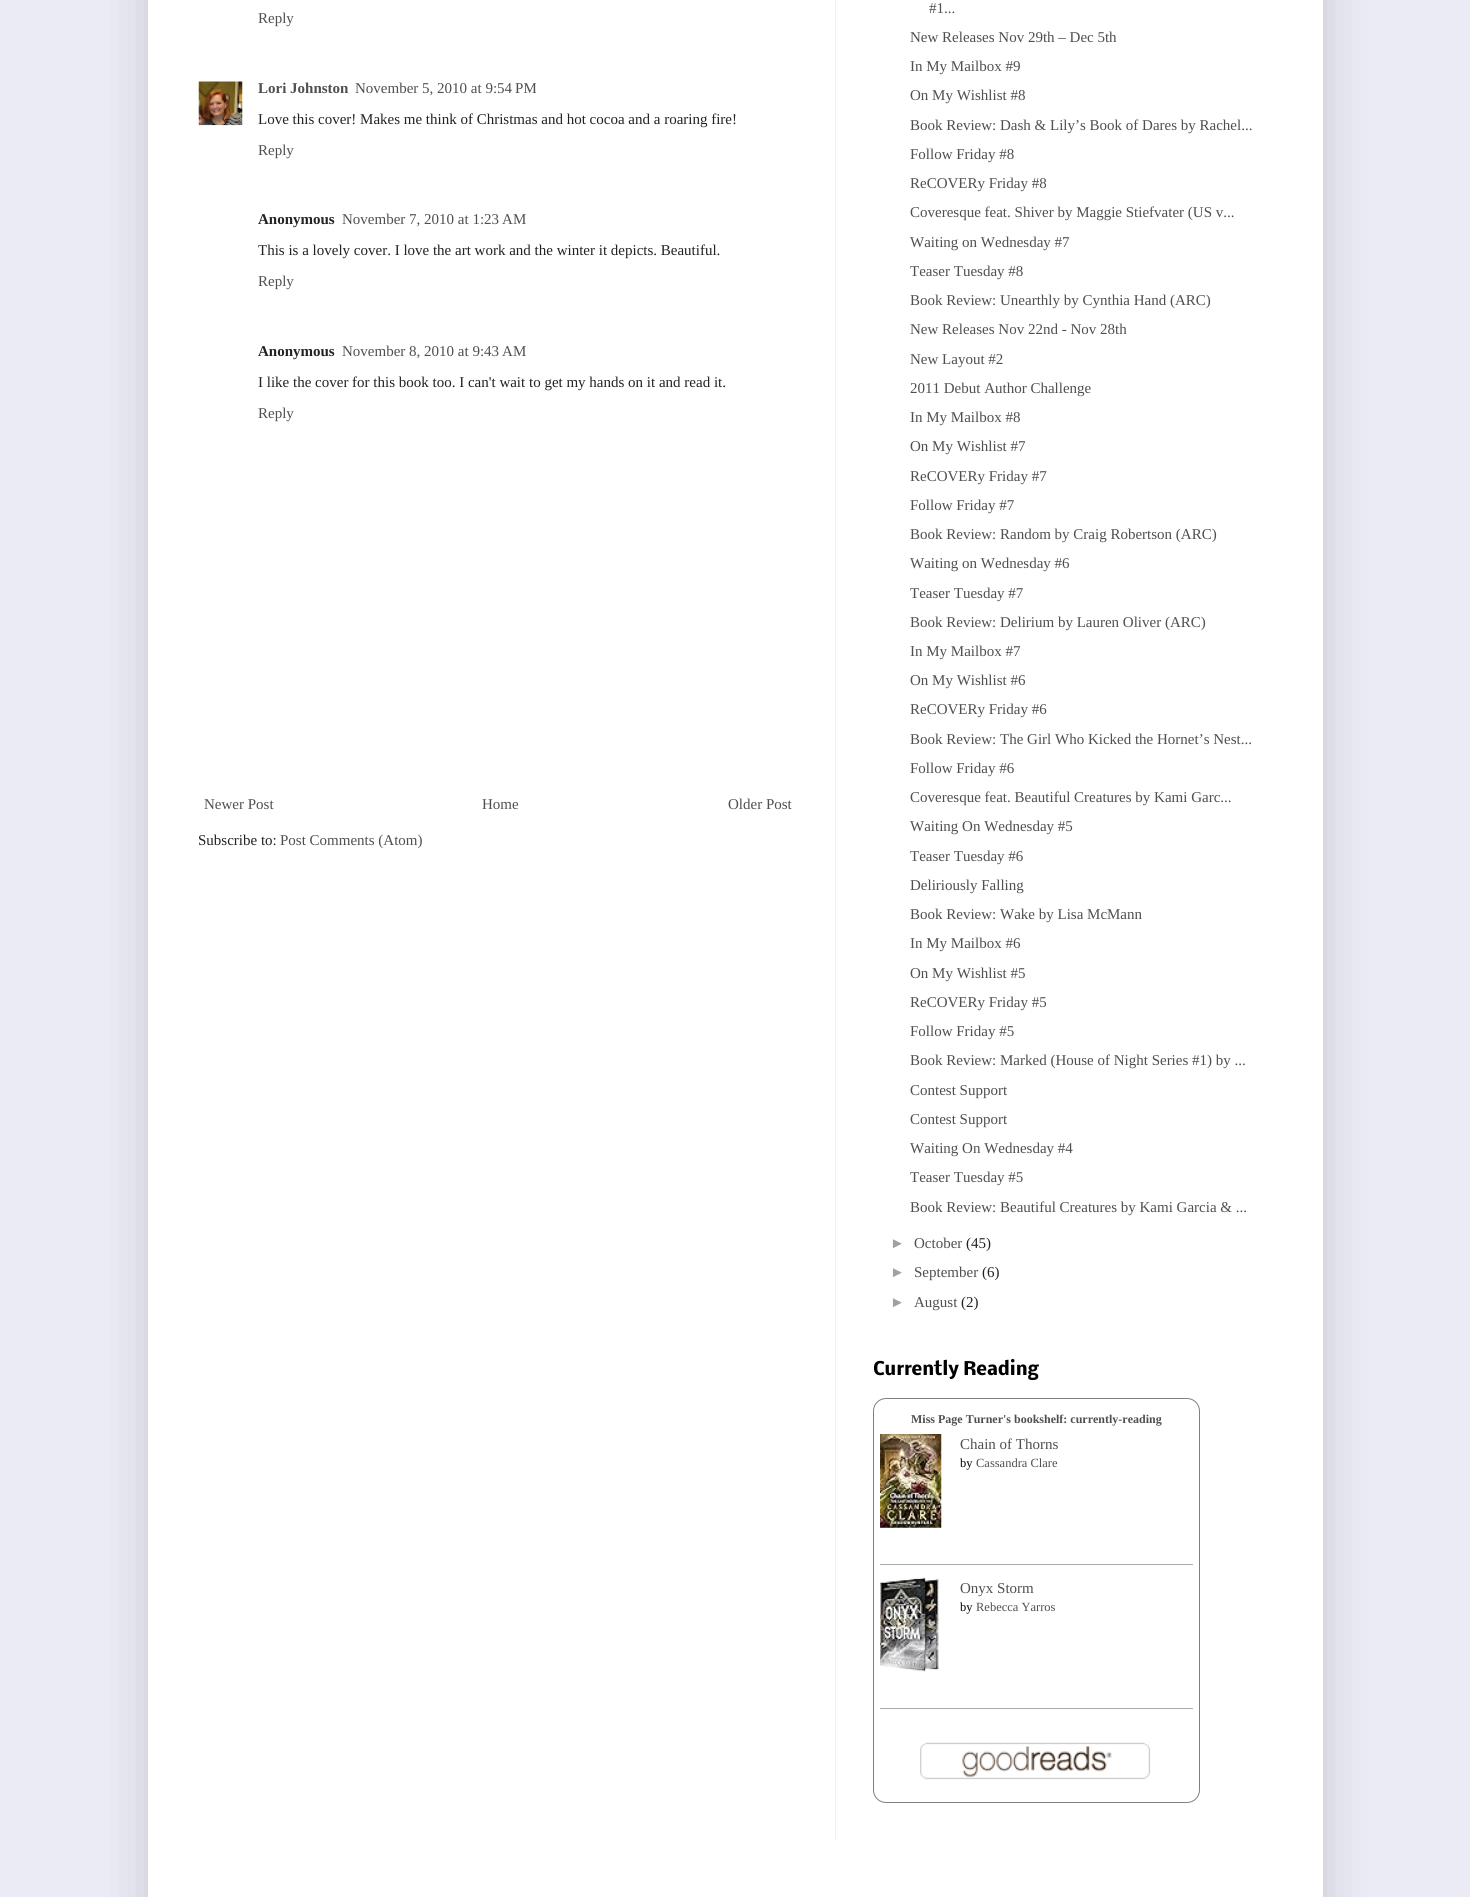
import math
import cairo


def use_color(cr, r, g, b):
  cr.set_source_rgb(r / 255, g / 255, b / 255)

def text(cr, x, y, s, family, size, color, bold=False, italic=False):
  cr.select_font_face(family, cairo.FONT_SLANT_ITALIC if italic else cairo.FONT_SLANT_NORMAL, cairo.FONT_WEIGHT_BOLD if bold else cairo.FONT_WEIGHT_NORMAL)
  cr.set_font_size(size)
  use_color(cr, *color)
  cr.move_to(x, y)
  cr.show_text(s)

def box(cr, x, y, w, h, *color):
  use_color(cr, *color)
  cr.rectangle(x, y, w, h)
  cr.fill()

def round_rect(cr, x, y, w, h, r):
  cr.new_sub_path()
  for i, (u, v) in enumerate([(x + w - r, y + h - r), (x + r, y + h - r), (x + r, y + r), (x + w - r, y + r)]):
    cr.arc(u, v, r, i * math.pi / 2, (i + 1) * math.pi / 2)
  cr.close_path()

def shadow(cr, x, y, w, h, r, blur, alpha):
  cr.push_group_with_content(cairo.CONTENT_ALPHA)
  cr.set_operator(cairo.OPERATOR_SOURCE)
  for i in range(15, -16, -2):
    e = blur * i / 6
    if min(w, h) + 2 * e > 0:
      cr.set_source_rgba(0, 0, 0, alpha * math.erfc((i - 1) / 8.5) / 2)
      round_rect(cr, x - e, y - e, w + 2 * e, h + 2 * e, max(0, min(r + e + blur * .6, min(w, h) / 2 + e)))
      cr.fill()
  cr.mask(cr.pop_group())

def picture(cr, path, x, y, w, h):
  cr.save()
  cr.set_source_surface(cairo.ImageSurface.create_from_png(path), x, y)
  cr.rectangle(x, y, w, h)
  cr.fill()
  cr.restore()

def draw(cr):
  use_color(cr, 234, 235, 244)
  cr.paint()
  use_color(cr, 0, 0, 0)
  shadow(cr, 148, -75, 1175, 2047, 0, 25, 0.15)
  box(cr, 148, 0, 1175, 1897, 255, 255, 255)
  box(cr, 835, 0, 1, 1840, 241, 241, 241)
  picture(cr, "img_01.png", 198, 81, 45, 45)
  round_rect(cr, 873.5, 1398.5, 326, 404, 12.5)
  use_color(cr, 128, 128, 128)
  cr.set_line_width(1)
  cr.stroke()
  box(cr, 880, 1564, 313, 1, 170, 170, 170)
  picture(cr, "img_02.png", 880, 1434, 62, 94)
  box(cr, 880, 1708, 313, 1, 170, 170, 170)
  picture(cr, "img_03.png", 880, 1577, 59, 95)
  picture(cr, "img_04.png", 920, 1742, 231, 38)
  text(cr, 258, 23, "Reply", "Liberation Serif", 15, (79, 79, 82))
  text(cr, 258, 93, "Lori Johnston", "Liberation Serif", 15, (79, 79, 82), bold=True)
  text(cr, 355, 93, "November 5, 2010 at 9:54 PM", "Liberation Serif", 15, (79, 79, 82))
  text(cr, 258, 124, "Love this cover! Makes me think of Christmas and hot cocoa and a roaring fire!", "Liberation Serif", 15, (34, 34, 34))
  text(cr, 258, 155, "Reply", "Liberation Serif", 15, (79, 79, 82))
  text(cr, 258, 224, "Anonymous", "Liberation Serif", 15, (34, 34, 34), bold=True)
  text(cr, 342, 224, "November 7, 2010 at 1:23 AM", "Liberation Serif", 15, (79, 79, 82))
  text(cr, 258, 255, "This is a lovely cover. I love the art work and the winter it depicts. Beautiful.", "Liberation Serif", 15, (34, 34, 34))
  text(cr, 258, 286, "Reply", "Liberation Serif", 15, (79, 79, 82))
  text(cr, 258, 356, "Anonymous", "Liberation Serif", 15, (34, 34, 34), bold=True)
  text(cr, 342, 356, "November 8, 2010 at 9:43 AM", "Liberation Serif", 15, (79, 79, 82))
  text(cr, 258, 387, "I like the cover for this book too. I can't wait to get my hands on it and read it.", "Liberation Serif", 15, (34, 34, 34))
  text(cr, 258, 418, "Reply", "Liberation Serif", 15, (79, 79, 82))
  text(cr, 204, 809, "Newer Post", "Liberation Serif", 15, (79, 79, 82))
  text(cr, 482, 809, "Home", "Liberation Serif", 15, (79, 79, 82))
  text(cr, 728, 809, "Older Post", "Liberation Serif", 15, (79, 79, 82))
  text(cr, 198, 845, "Subscribe to:", "Liberation Serif", 15, (34, 34, 34))
  text(cr, 280, 845, "Post Comments (Atom)", "Liberation Serif", 15, (79, 79, 82))
  text(cr, 929, 13, "#1...", "Liberation Serif", 15, (79, 79, 82))
  text(cr, 910, 42, "New Releases Nov 29th – Dec 5th", "Liberation Serif", 15, (79, 79, 82))
  text(cr, 910, 71, "In My Mailbox #9", "Liberation Serif", 15, (79, 79, 82))
  text(cr, 910, 100, "On My Wishlist #8", "Liberation Serif", 15, (79, 79, 82))
  text(cr, 910, 130, "Book Review: Dash & Lily’s Book of Dares by Rachel...", "Liberation Serif", 15, (79, 79, 82))
  text(cr, 910, 159, "Follow Friday #8", "Liberation Serif", 15, (79, 79, 82))
  text(cr, 910, 188, "ReCOVERy Friday #8", "Liberation Serif", 15, (79, 79, 82))
  text(cr, 910, 217, "Coveresque feat. Shiver by Maggie Stiefvater (US v...", "Liberation Serif", 15, (79, 79, 82))
  text(cr, 910, 247, "Waiting on Wednesday #7", "Liberation Serif", 15, (79, 79, 82))
  text(cr, 910, 276, "Teaser Tuesday #8", "Liberation Serif", 15, (79, 79, 82))
  text(cr, 910, 305, "Book Review: Unearthly by Cynthia Hand (ARC)", "Liberation Serif", 15, (79, 79, 82))
  text(cr, 910, 334, "New Releases Nov 22nd - Nov 28th", "Liberation Serif", 15, (79, 79, 82))
  text(cr, 910, 364, "New Layout #2", "Liberation Serif", 15, (79, 79, 82))
  text(cr, 910, 393, "2011 Debut Author Challenge", "Liberation Serif", 15, (79, 79, 82))
  text(cr, 910, 422, "In My Mailbox #8", "Liberation Serif", 15, (79, 79, 82))
  text(cr, 910, 451, "On My Wishlist #7", "Liberation Serif", 15, (79, 79, 82))
  text(cr, 910, 481, "ReCOVERy Friday #7", "Liberation Serif", 15, (79, 79, 82))
  text(cr, 910, 510, "Follow Friday #7", "Liberation Serif", 15, (79, 79, 82))
  text(cr, 910, 539, "Book Review: Random by Craig Robertson (ARC)", "Liberation Serif", 15, (79, 79, 82))
  text(cr, 910, 568, "Waiting on Wednesday #6", "Liberation Serif", 15, (79, 79, 82))
  text(cr, 910, 598, "Teaser Tuesday #7", "Liberation Serif", 15, (79, 79, 82))
  text(cr, 910, 627, "Book Review: Delirium by Lauren Oliver (ARC)", "Liberation Serif", 15, (79, 79, 82))
  text(cr, 910, 656, "In My Mailbox #7", "Liberation Serif", 15, (79, 79, 82))
  text(cr, 910, 685, "On My Wishlist #6", "Liberation Serif", 15, (79, 79, 82))
  text(cr, 910, 714, "ReCOVERy Friday #6", "Liberation Serif", 15, (79, 79, 82))
  text(cr, 910, 744, "Book Review: The Girl Who Kicked the Hornet’s Nest...", "Liberation Serif", 15, (79, 79, 82))
  text(cr, 910, 773, "Follow Friday #6", "Liberation Serif", 15, (79, 79, 82))
  text(cr, 910, 802, "Coveresque feat. Beautiful Creatures by Kami Garc...", "Liberation Serif", 15, (79, 79, 82))
  text(cr, 910, 831, "Waiting On Wednesday #5", "Liberation Serif", 15, (79, 79, 82))
  text(cr, 910, 861, "Teaser Tuesday #6", "Liberation Serif", 15, (79, 79, 82))
  text(cr, 910, 890, "Deliriously Falling", "Liberation Serif", 15, (79, 79, 82))
  text(cr, 910, 919, "Book Review: Wake by Lisa McMann", "Liberation Serif", 15, (79, 79, 82))
  text(cr, 910, 948, "In My Mailbox #6", "Liberation Serif", 15, (79, 79, 82))
  text(cr, 910, 978, "On My Wishlist #5", "Liberation Serif", 15, (79, 79, 82))
  text(cr, 910, 1007, "ReCOVERy Friday #5", "Liberation Serif", 15, (79, 79, 82))
  text(cr, 910, 1036, "Follow Friday #5", "Liberation Serif", 15, (79, 79, 82))
  text(cr, 910, 1065, "Book Review: Marked (House of Night Series #1) by ...", "Liberation Serif", 15, (79, 79, 82))
  text(cr, 910, 1095, "Contest Support", "Liberation Serif", 15, (79, 79, 82))
  text(cr, 910, 1124, "Contest Support", "Liberation Serif", 15, (79, 79, 82))
  text(cr, 910, 1153, "Waiting On Wednesday #4", "Liberation Serif", 15, (79, 79, 82))
  text(cr, 910, 1182, "Teaser Tuesday #5", "Liberation Serif", 15, (79, 79, 82))
  text(cr, 910, 1212, "Book Review: Beautiful Creatures by Kami Garcia & ...", "Liberation Serif", 15, (79, 79, 82))
  text(cr, 890, 1248, "►", "Liberation Sans", 15, (161, 161, 161))
  text(cr, 914, 1248, "October", "Liberation Serif", 15, (79, 79, 82))
  text(cr, 966, 1248, "(45)", "Liberation Serif", 15, (34, 34, 34))
  text(cr, 890, 1277, "►", "Liberation Sans", 15, (161, 161, 161))
  text(cr, 914, 1277, "September", "Liberation Serif", 15, (79, 79, 82))
  text(cr, 982, 1277, "(6)", "Liberation Serif", 15, (34, 34, 34))
  text(cr, 890, 1307, "►", "Liberation Sans", 15, (161, 161, 161))
  text(cr, 914, 1307, "August", "Liberation Serif", 15, (79, 79, 82))
  text(cr, 961, 1307, "(2)", "Liberation Serif", 15, (34, 34, 34))
  text(cr, 873, 1375, "Currently Reading", "Nobile", 17.5, (0, 0, 0), bold=True)
  text(cr, 911, 1423, "Miss Page Turner's bookshelf: currently-reading", "Liberation Serif", 12, (79, 79, 82), bold=True)
  text(cr, 960, 1449, "Chain of Thorns", "Liberation Serif", 15, (79, 79, 82))
  text(cr, 960, 1467, "by", "Liberation Serif", 12.5, (0, 0, 0))
  text(cr, 976, 1467, "Cassandra Clare", "Liberation Serif", 12.5, (79, 79, 82))
  text(cr, 960, 1593, "Onyx Storm", "Liberation Serif", 15, (79, 79, 82))
  text(cr, 960, 1611, "by", "Liberation Serif", 12.5, (0, 0, 0))
  text(cr, 976, 1611, "Rebecca Yarros", "Liberation Serif", 12.5, (79, 79, 82))


surface = cairo.ImageSurface(cairo.FORMAT_RGB24, 1470, 1897)
cr = cairo.Context(surface)
options = cairo.FontOptions()
options.set_hint_metrics(cairo.HINT_METRICS_OFF)
options.set_hint_style(cairo.HINT_STYLE_NONE)
cr.set_font_options(options)
cr.set_miter_limit(4)
draw(cr)
surface.write_to_png("out.png")
